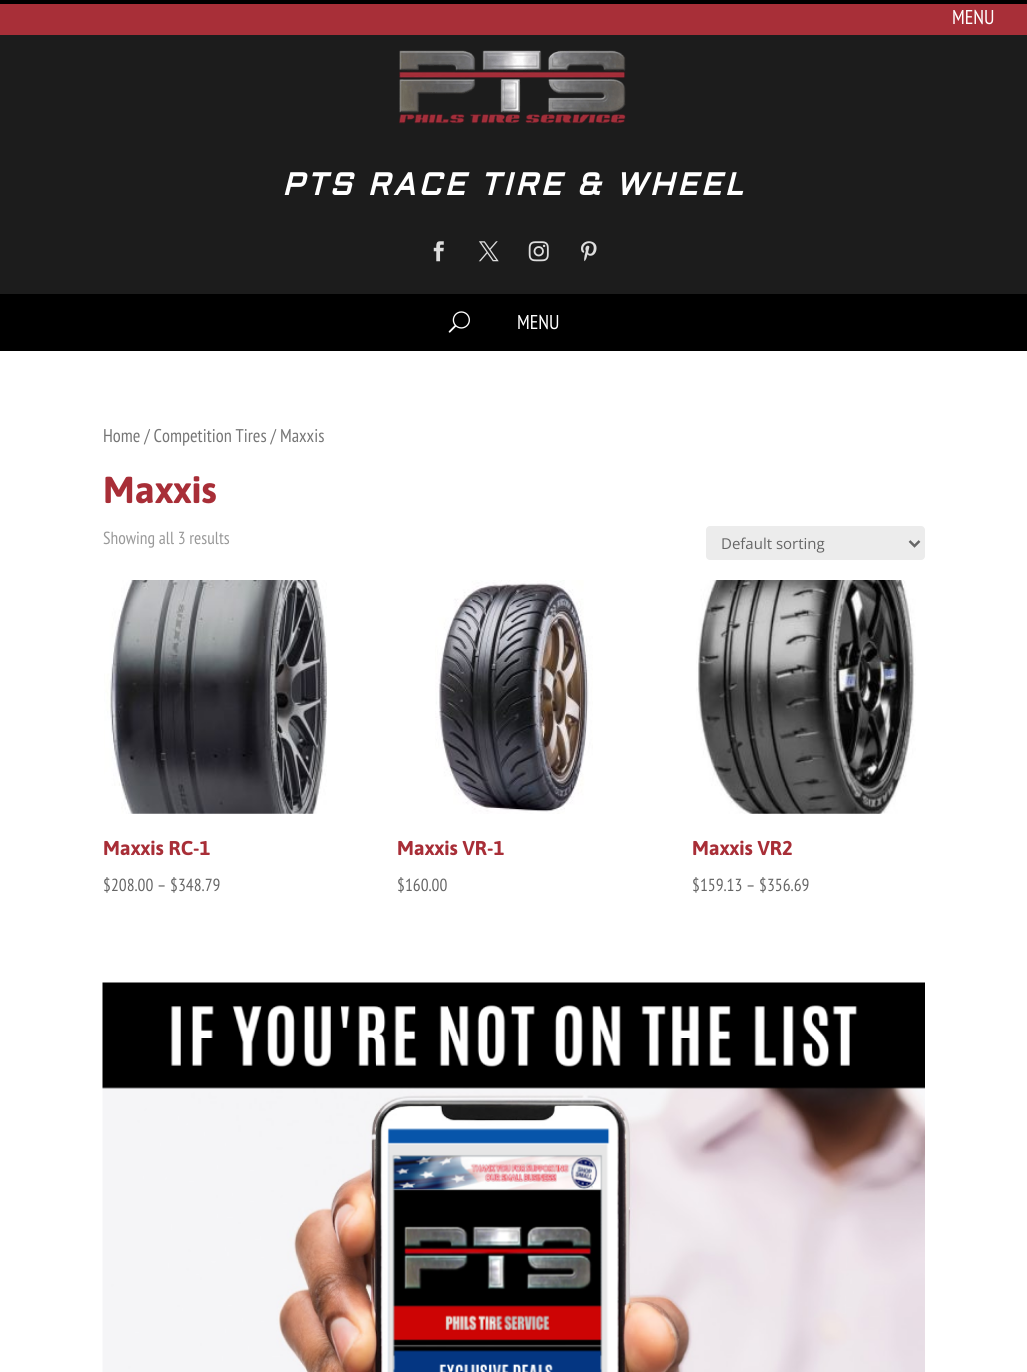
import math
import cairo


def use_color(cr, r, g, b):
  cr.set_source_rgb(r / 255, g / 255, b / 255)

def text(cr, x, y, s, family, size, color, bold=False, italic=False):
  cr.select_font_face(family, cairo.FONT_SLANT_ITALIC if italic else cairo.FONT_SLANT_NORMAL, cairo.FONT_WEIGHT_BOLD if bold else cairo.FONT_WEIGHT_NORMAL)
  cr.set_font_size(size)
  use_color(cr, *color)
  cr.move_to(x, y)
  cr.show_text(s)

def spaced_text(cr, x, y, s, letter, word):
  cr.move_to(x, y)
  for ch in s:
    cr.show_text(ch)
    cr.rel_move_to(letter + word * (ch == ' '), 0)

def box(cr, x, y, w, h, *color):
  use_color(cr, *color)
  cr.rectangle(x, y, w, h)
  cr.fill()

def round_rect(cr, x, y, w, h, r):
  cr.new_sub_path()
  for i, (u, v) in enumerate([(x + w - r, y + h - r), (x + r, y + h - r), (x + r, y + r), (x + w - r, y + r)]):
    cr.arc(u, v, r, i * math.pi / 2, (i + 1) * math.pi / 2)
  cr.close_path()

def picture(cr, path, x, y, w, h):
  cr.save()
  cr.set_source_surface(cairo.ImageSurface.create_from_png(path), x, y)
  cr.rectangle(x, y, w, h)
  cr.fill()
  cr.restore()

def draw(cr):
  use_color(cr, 0, 0, 0)
  cr.paint()
  box(cr, 0, 35, 1027, 259, 28, 28, 28)
  box(cr, 0, 4, 1027, 31, 168, 47, 56)
  picture(cr, "img_01.png", 399, 50, 227, 74)
  picture(cr, "img_02.png", 433, 241, 11, 21)
  picture(cr, "img_03.png", 478, 241, 21, 21)
  picture(cr, "img_04.png", 528, 241, 21, 21)
  picture(cr, "img_05.png", 581, 241, 16, 21)
  picture(cr, "img_06.png", 448, 311, 22, 22)
  box(cr, 0, 351, 1027, 1021, 255, 255, 255)
  use_color(cr, 236, 236, 236)
  round_rect(cr, 706, 526, 219, 34, 4)
  cr.fill()
  cr.new_path()
  cr.move_to(909.5, 541)
  cr.line_to(914.5, 546)
  cr.line_to(919.5, 541)
  use_color(cr, 102, 102, 102)
  cr.set_line_width(2.5)
  cr.stroke()
  picture(cr, "img_07.png", 104, 580, 223, 234)
  picture(cr, "img_08.png", 435, 580, 158, 234)
  picture(cr, "img_09.png", 696, 580, 220, 234)
  picture(cr, "img_10.png", 102, 982, 823, 390)
  text(cr, 952, 24, "MENU", "PT Sans Narrow", 20, (255, 255, 255))
  cr.select_font_face("Aldrich", cairo.FONT_SLANT_ITALIC, cairo.FONT_WEIGHT_BOLD)
  cr.set_font_size(31.25)
  spaced_text(cr, 282, 195, "PTS RACE TIRE & WHEEL", 3.1, 0)
  text(cr, 517, 329, "MENU", "PT Sans Narrow", 20, (255, 255, 255))
  text(cr, 103, 442, "Home / Competition Tires / Maxxis", "PT Sans Narrow", 18.4, (118, 118, 118))
  text(cr, 103, 503, "Maxxis", "Asap", 37.5, (168, 46, 55), bold=True)
  text(cr, 103, 544, "Showing all 3 results", "PT Sans Narrow", 17.5, (153, 153, 153))
  text(cr, 721, 549, "Default sorting", "Open Sans", 15, (102, 102, 102))
  text(cr, 103, 855, "Maxxis RC-1", "Asap", 20, (168, 46, 55), bold=True)
  text(cr, 103, 891, "$208.00 – $348.79", "PT Sans Narrow", 17.5, (102, 102, 102))
  text(cr, 397, 855, "Maxxis VR-1", "Asap", 20, (168, 46, 55), bold=True)
  text(cr, 397, 891, "$160.00", "PT Sans Narrow", 17.5, (102, 102, 102))
  text(cr, 692, 855, "Maxxis VR2", "Asap", 20, (168, 46, 55), bold=True)
  text(cr, 692, 891, "$159.13 – $356.69", "PT Sans Narrow", 17.5, (102, 102, 102))


surface = cairo.ImageSurface(cairo.FORMAT_RGB24, 1027, 1372)
cr = cairo.Context(surface)
options = cairo.FontOptions()
options.set_hint_metrics(cairo.HINT_METRICS_OFF)
options.set_hint_style(cairo.HINT_STYLE_NONE)
cr.set_font_options(options)
cr.set_miter_limit(4)
draw(cr)
surface.write_to_png("out.png")
